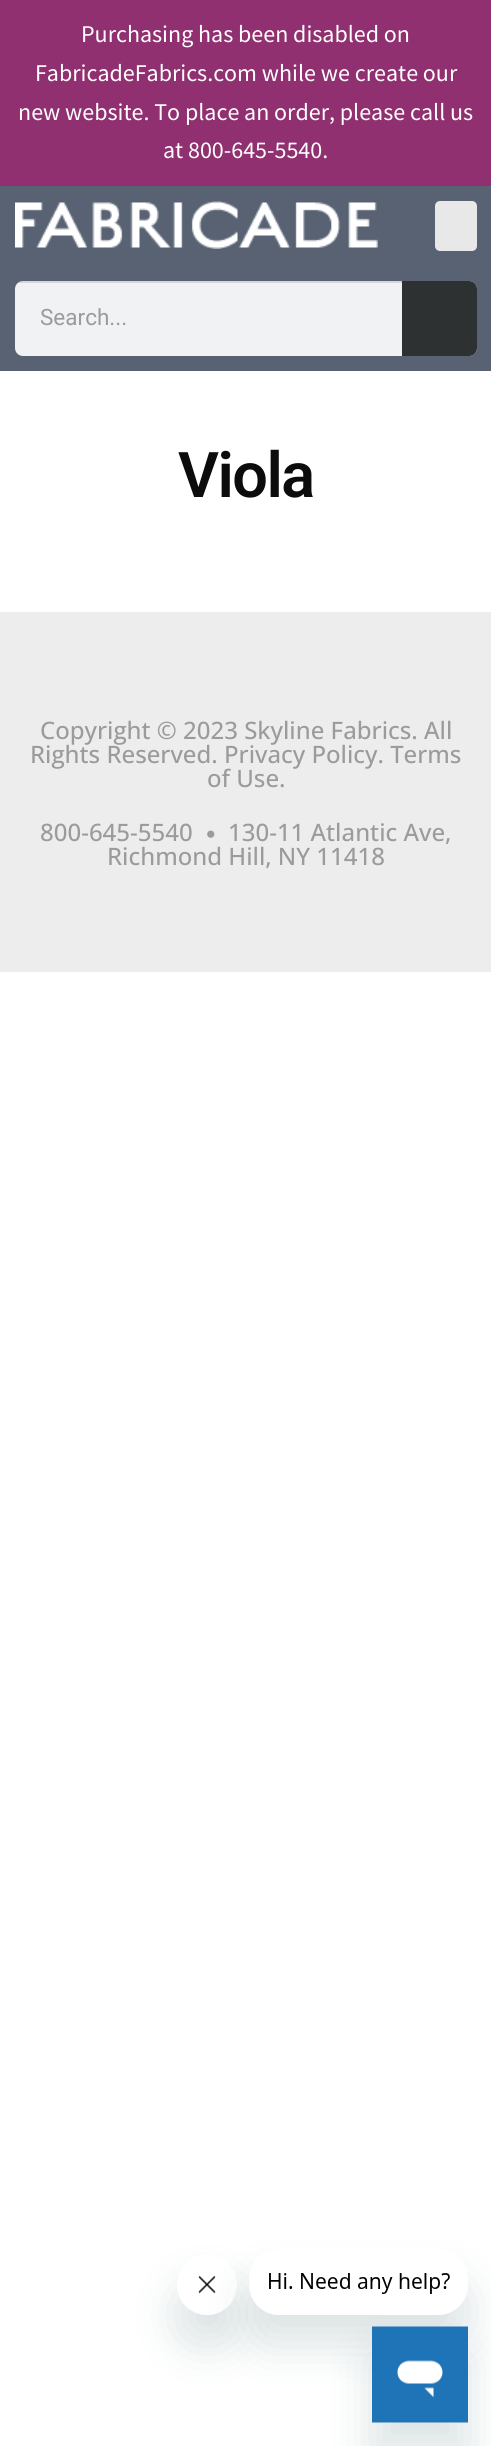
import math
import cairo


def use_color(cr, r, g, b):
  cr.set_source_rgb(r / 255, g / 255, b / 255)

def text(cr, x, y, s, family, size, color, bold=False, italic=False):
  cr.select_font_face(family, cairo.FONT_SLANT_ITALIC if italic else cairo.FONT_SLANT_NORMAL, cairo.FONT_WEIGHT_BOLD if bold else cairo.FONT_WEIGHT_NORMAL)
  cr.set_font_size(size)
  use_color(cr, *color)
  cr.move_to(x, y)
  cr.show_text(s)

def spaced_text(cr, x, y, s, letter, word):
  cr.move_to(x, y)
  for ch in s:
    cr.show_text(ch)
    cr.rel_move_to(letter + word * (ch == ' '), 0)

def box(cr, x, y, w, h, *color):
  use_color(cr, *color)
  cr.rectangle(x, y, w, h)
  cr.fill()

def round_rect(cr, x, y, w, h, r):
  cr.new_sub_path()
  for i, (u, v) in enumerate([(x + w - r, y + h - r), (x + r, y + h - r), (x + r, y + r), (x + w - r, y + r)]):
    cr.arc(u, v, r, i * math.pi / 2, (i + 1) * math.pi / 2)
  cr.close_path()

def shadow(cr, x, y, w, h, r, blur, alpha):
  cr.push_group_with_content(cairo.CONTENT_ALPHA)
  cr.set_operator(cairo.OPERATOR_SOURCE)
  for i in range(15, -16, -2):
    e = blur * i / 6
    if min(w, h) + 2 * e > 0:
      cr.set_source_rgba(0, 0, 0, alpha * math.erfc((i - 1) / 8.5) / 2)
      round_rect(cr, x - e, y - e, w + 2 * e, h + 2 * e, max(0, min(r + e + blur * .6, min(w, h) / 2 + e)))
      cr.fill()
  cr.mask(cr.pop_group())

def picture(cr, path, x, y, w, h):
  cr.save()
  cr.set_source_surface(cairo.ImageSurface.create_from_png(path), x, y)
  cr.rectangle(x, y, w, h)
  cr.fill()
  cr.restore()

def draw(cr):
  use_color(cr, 255, 255, 255)
  cr.paint()
  box(cr, 0, 0, 491, 186, 145, 48, 112)
  box(cr, 0, 186, 491, 185, 89, 98, 115)
  picture(cr, "img_01.png", 15, 201, 363, 48)
  use_color(cr, 232, 232, 232)
  round_rect(cr, 435, 201, 42, 50, 5)
  cr.fill()
  use_color(cr, 241, 242, 243)
  round_rect(cr, 15, 281, 462, 75, 8)
  cr.fill()
  cr.save()
  round_rect(cr, 15, 281, 462, 75, 8)
  cr.clip()
  cr.set_source_rgba(0, 0, 0, 0.12)
  cr.rectangle(15, 281, 387, 2)
  cr.fill()
  cr.restore()
  use_color(cr, 46, 49, 49)
  cr.new_path()
  cr.move_to(402, 281)
  cr.line_to(469, 281)
  cr.curve_to(473.5, 281, 477, 284.5, 477, 289)
  cr.line_to(477, 348)
  cr.curve_to(477, 352.5, 473.5, 356, 469, 356)
  cr.line_to(402, 356)
  cr.close_path()
  cr.fill()
  box(cr, 0, 612, 491, 360, 237, 237, 237)
  picture(cr, "img_02.png", 207, 830, 8, 8)
  cr.save()
  cr.set_fill_rule(cairo.FILL_RULE_EVEN_ODD)
  cr.new_path()
  cr.move_to(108, 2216)
  cr.line_to(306, 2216)
  cr.line_to(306, 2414)
  cr.line_to(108, 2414)
  cr.close_path()
  cr.move_to(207, 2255)
  cr.curve_to(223.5, 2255, 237, 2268.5, 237, 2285)
  cr.curve_to(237, 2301.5, 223.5, 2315, 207, 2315)
  cr.curve_to(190.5, 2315, 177, 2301.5, 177, 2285)
  cr.curve_to(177, 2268.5, 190.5, 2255, 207, 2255)
  cr.close_path()
  cr.clip()
  use_color(cr, 23, 73, 77)
  shadow(cr, 177, 2285, 60, 60, 30, 22.5, 0.15)
  cr.restore()
  picture(cr, "img_04.png", 196, 2275, 22, 40)
  cr.save()
  cr.set_fill_rule(cairo.FILL_RULE_EVEN_ODD)
  cr.new_path()
  cr.move_to(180, 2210)
  cr.line_to(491, 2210)
  cr.line_to(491, 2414)
  cr.line_to(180, 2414)
  cr.close_path()
  cr.move_to(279, 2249)
  cr.line_to(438, 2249)
  cr.curve_to(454.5, 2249, 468, 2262.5, 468, 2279)
  cr.line_to(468, 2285)
  cr.curve_to(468, 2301.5, 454.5, 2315, 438, 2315)
  cr.line_to(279, 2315)
  cr.curve_to(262.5, 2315, 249, 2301.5, 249, 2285)
  cr.line_to(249, 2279)
  cr.curve_to(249, 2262.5, 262.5, 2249, 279, 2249)
  cr.close_path()
  cr.clip()
  use_color(cr, 23, 73, 77)
  shadow(cr, 249, 2279, 219, 66, 30, 22.5, 0.15)
  cr.restore()
  picture(cr, "img_03.png", 250, 2273, 200, 41)
  use_color(cr, 23, 73, 77)
  shadow(cr, 372, 2357, 96, 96, 0, 22.5, 0.15)
  picture(cr, "img_05.png", 372, 2326, 96, 97)
  text(cr, 81, 42, "Purchasing has been disabled on", "Source Sans Pro", 24, (255, 255, 255))
  text(cr, 35, 81, "FabricadeFabrics.com while we create our", "Source Sans Pro", 24, (255, 255, 255))
  text(cr, 18, 120, "new website. To place an order, please call us", "Source Sans Pro", 24, (255, 255, 255))
  text(cr, 163, 158, "at 800-645-5540.", "Source Sans Pro", 24, (255, 255, 255))
  text(cr, 40, 325, "Search...", "Roboto", 22.5, (155, 155, 155))
  cr.select_font_face("Roboto SemiBold")
  cr.set_font_size(63)
  use_color(cr, 12, 12, 12)
  spaced_text(cr, 178, 497, "Viola", -1.5, 0)
  text(cr, 40, 739, "Copyright © 2023 Skyline Fabrics. All", "Open Sans Medium", 24, (155, 155, 155))
  text(cr, 30, 763, "Rights Reserved. Privacy Policy. Terms", "Open Sans Medium", 24, (155, 155, 155))
  text(cr, 207, 787, "of Use.", "Open Sans Medium", 24, (155, 155, 155))
  text(cr, 40, 841, "800-645-5540", "Open Sans Medium", 24, (155, 155, 155))
  text(cr, 228, 841, "130-11 Atlantic Ave,", "Open Sans Medium", 24, (155, 155, 155))
  text(cr, 107, 865, "Richmond Hill, NY 11418", "Open Sans Medium", 24, (155, 155, 155))


surface = cairo.ImageSurface(cairo.FORMAT_RGB24, 491, 2446)
cr = cairo.Context(surface)
options = cairo.FontOptions()
options.set_hint_metrics(cairo.HINT_METRICS_OFF)
options.set_hint_style(cairo.HINT_STYLE_NONE)
cr.set_font_options(options)
cr.set_miter_limit(4)
draw(cr)
surface.write_to_png("out.png")
